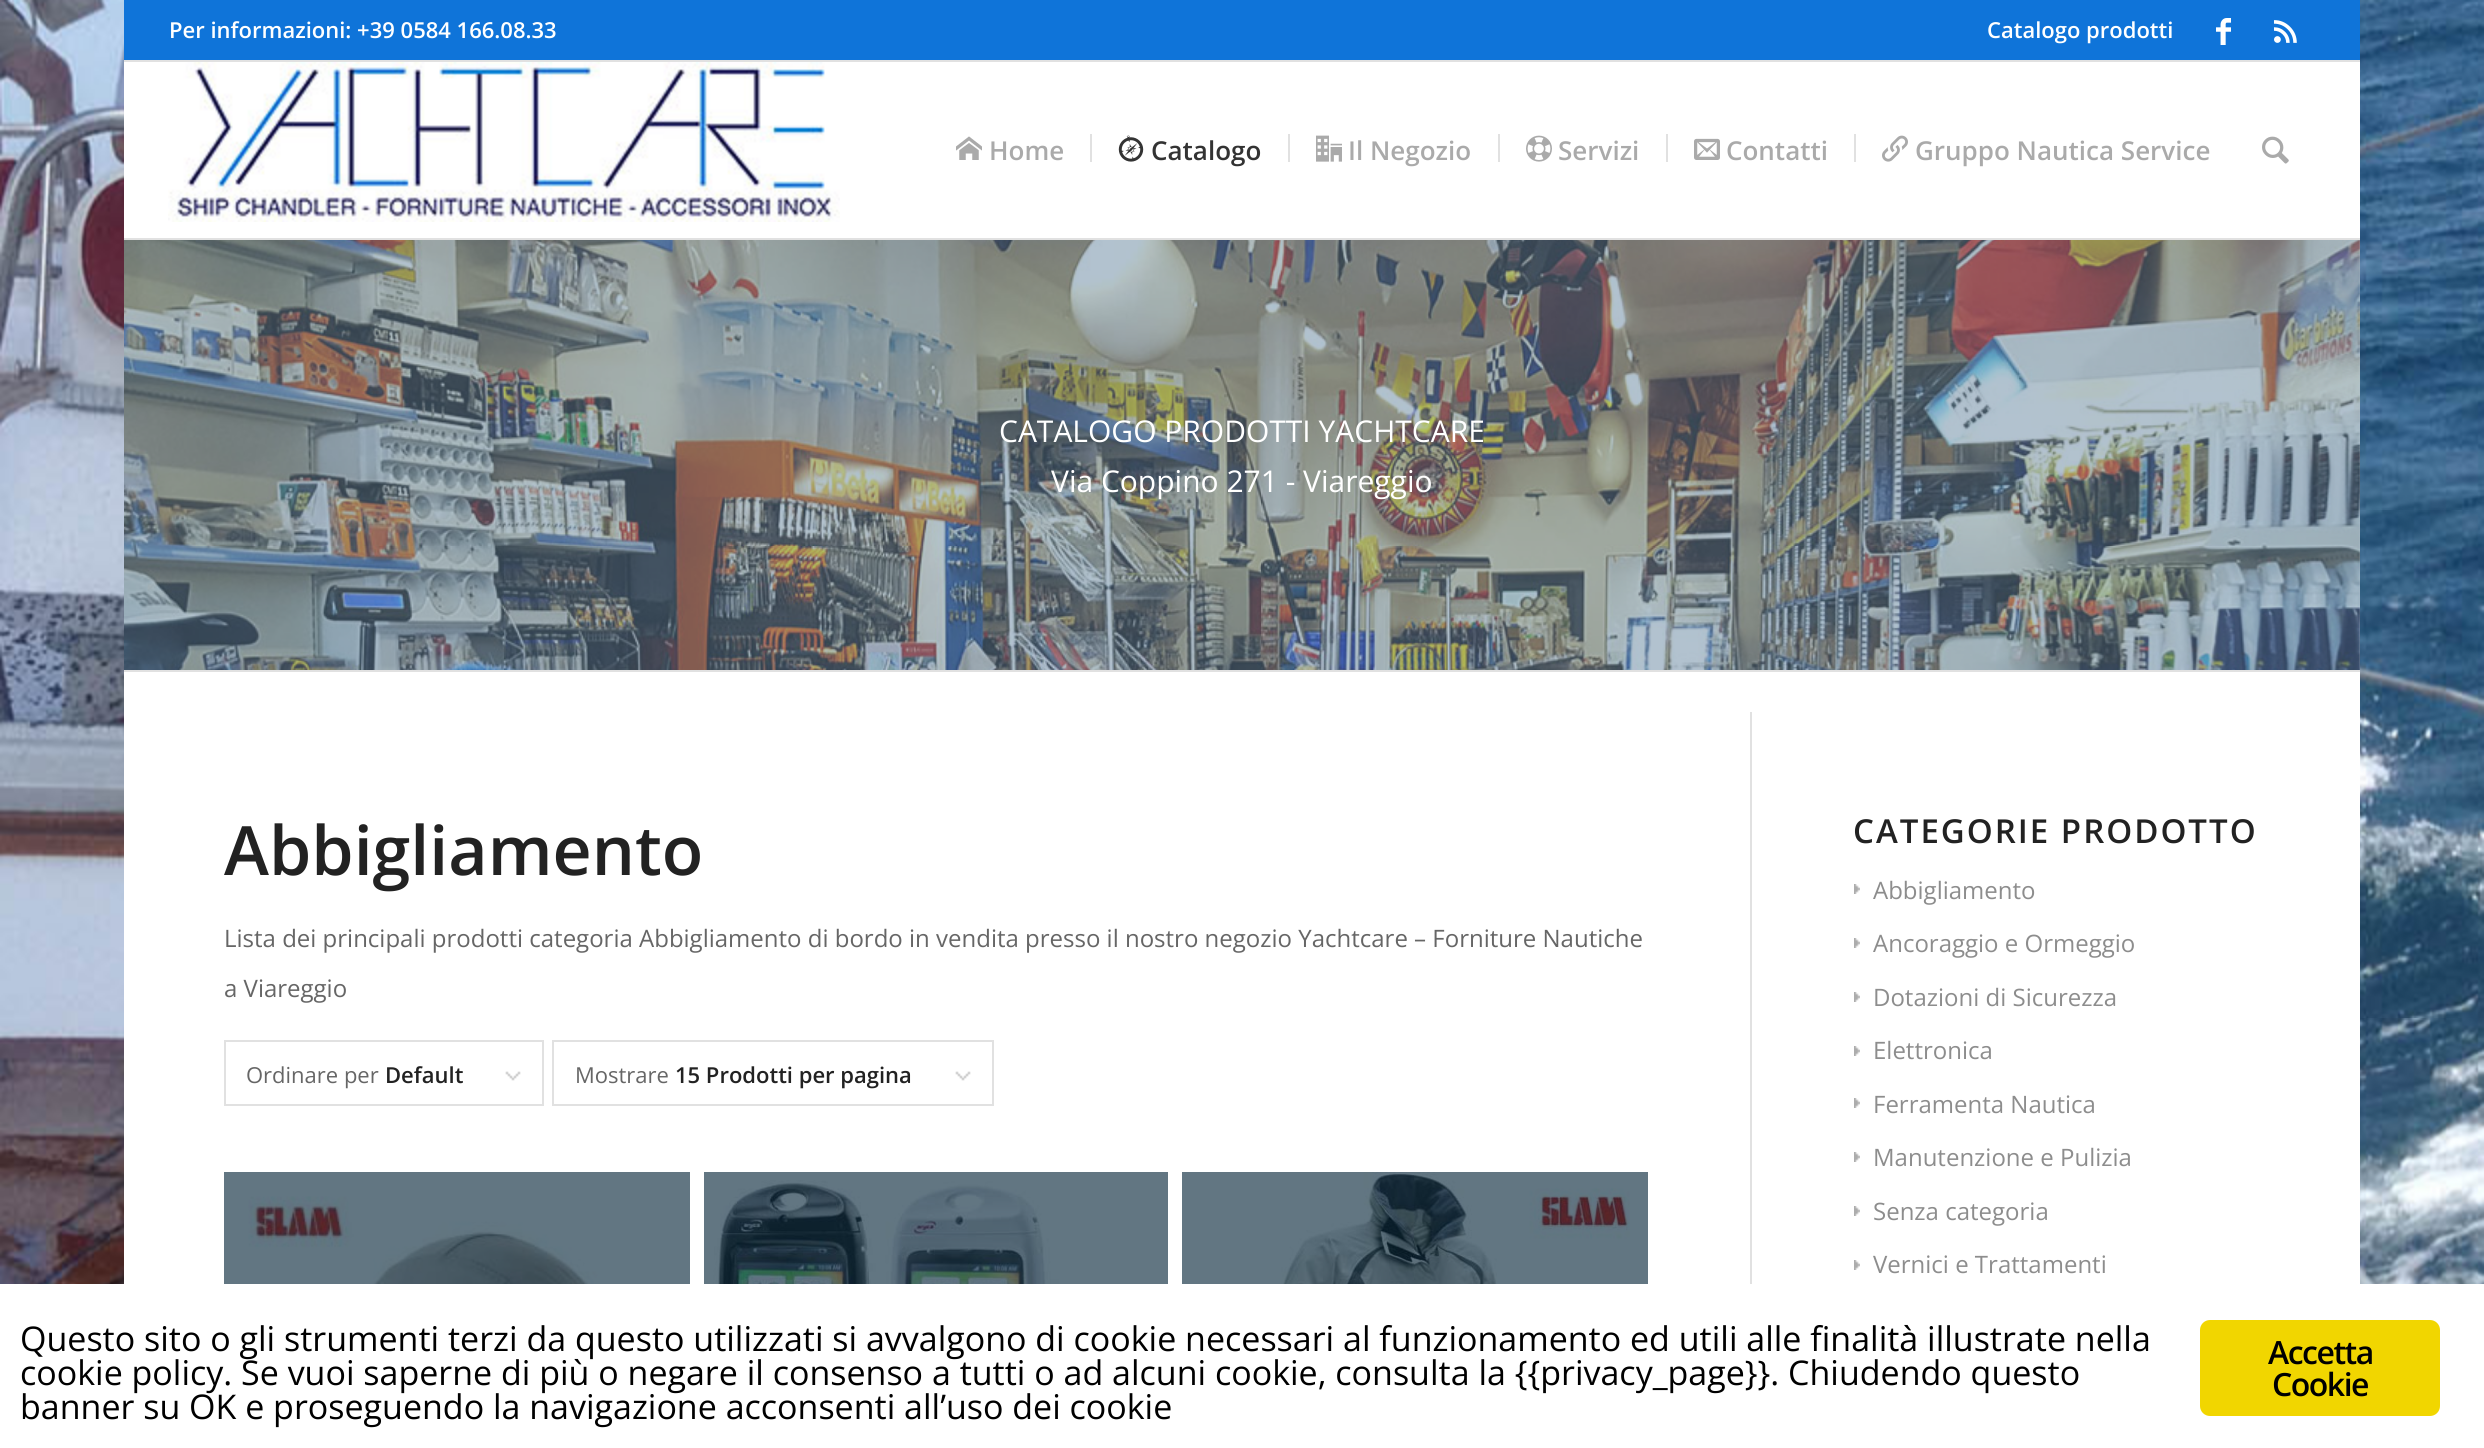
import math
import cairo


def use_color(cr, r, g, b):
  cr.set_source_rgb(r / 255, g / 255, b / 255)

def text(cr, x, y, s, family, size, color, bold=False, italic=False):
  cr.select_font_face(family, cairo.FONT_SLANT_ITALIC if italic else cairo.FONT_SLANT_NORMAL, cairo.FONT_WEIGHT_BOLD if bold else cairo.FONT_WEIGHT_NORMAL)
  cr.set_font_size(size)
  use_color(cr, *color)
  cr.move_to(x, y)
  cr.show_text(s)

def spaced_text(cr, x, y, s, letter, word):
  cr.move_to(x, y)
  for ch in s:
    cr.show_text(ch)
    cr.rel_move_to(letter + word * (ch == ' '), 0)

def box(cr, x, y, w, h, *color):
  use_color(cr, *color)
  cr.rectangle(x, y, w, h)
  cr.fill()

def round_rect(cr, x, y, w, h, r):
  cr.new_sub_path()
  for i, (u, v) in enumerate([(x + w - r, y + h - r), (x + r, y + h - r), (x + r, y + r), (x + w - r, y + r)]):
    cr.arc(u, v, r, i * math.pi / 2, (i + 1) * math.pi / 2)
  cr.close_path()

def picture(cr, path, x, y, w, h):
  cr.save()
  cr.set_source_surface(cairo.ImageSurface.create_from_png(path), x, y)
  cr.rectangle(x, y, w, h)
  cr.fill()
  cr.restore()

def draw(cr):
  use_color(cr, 255, 255, 255)
  cr.paint()
  picture(cr, "img_01.png", 0, 0, 2484, 1284)
  box(cr, 124, 0, 2236, 60, 15, 116, 217)
  box(cr, 124, 60, 2236, 2, 225, 225, 225)
  picture(cr, "img_02.png", 2216, 18, 15, 27)
  picture(cr, "img_03.png", 2274, 20, 23, 23)
  box(cr, 124, 62, 2236, 608, 255, 255, 255)
  box(cr, 124, 238, 2236, 2, 225, 225, 225)
  picture(cr, "img_04.png", 168, 62, 672, 160)
  picture(cr, "img_05.png", 956, 136, 26, 24)
  picture(cr, "img_06.png", 1118, 135, 26, 27)
  box(cr, 1090, 134, 2, 28, 225, 225, 225)
  picture(cr, "img_07.png", 1316, 135, 26, 27)
  box(cr, 1288, 134, 2, 28, 225, 225, 225)
  picture(cr, "img_08.png", 1526, 135, 26, 27)
  box(cr, 1498, 134, 2, 28, 225, 225, 225)
  picture(cr, "img_09.png", 1694, 138, 26, 22)
  box(cr, 1666, 134, 2, 28, 225, 225, 225)
  picture(cr, "img_10.png", 1882, 135, 26, 27)
  box(cr, 1854, 134, 2, 28, 225, 225, 225)
  picture(cr, "img_11.png", 2262, 136, 27, 28)
  picture(cr, "img_12.png", 124, 240, 2236, 430)
  cr.set_source_rgba(0.404, 0.525, 0.631, 0.5)
  cr.rectangle(124, 240, 2236, 430)
  cr.fill()
  box(cr, 124, 670, 2236, 2, 225, 225, 225)
  box(cr, 124, 672, 2236, 612, 255, 255, 255)
  box(cr, 1750, 712, 2, 572, 225, 225, 225)
  picture(cr, "img_13.png", 505, 1071, 16, 10)
  cr.rectangle(225, 1041, 318, 64)
  cr.stroke()
  picture(cr, "img_13.png", 955, 1071, 16, 10)
  cr.rectangle(553, 1041, 440, 64)
  cr.stroke()
  picture(cr, "img_14.png", 248, 1196, 364, 88)
  cr.set_source_rgba(0.008, 0.137, 0.208, 0.62)
  cr.rectangle(224, 1172, 466, 112)
  cr.fill()
  picture(cr, "img_15.png", 713, 1180, 455, 104)
  cr.rectangle(704, 1172, 464, 112)
  cr.fill()
  picture(cr, "img_16.png", 1257, 1172, 373, 112)
  cr.rectangle(1182, 1172, 466, 112)
  cr.fill()
  picture(cr, "img_17.png", 1854, 884, 6, 10)
  picture(cr, "img_17.png", 1854, 938, 6, 10)
  picture(cr, "img_17.png", 1854, 992, 6, 10)
  picture(cr, "img_17.png", 1854, 1046, 6, 10)
  picture(cr, "img_17.png", 1854, 1098, 6, 10)
  picture(cr, "img_17.png", 1854, 1152, 6, 10)
  picture(cr, "img_17.png", 1854, 1206, 6, 10)
  picture(cr, "img_17.png", 1854, 1260, 6, 10)
  use_color(cr, 241, 214, 0)
  round_rect(cr, 2200, 1320, 240, 96, 10)
  cr.fill()
  text(cr, 169, 38, "Per informazioni: +39 0584 166.08.33", "Open Sans SemiBold", 22, (255, 255, 255))
  text(cr, 1987, 38, "Catalogo prodotti", "Open Sans SemiBold", 22, (255, 255, 255))
  text(cr, 989, 160, "Home", "Open Sans SemiBold", 26, (170, 170, 170))
  text(cr, 1151, 160, "Catalogo", "Open Sans SemiBold", 26, (51, 51, 51))
  text(cr, 1348, 160, "Il Negozio", "Open Sans SemiBold", 26, (170, 170, 170))
  text(cr, 1558, 160, "Servizi", "Open Sans SemiBold", 26, (170, 170, 170))
  text(cr, 1726, 160, "Contatti", "Open Sans SemiBold", 26, (170, 170, 170))
  text(cr, 1915, 160, "Gruppo Nautica Service", "Open Sans SemiBold", 26, (170, 170, 170))
  text(cr, 999, 442, "CATALOGO PRODOTTI YACHTCARE", "Open Sans", 30, (255, 255, 255))
  text(cr, 1051, 492, "Via Coppino 271 - Viareggio", "Open Sans", 30, (255, 255, 255))
  text(cr, 224, 875, "Abbigliamento", "Open Sans SemiBold", 68, (34, 34, 34))
  text(cr, 224, 947, "Lista dei principali prodotti categoria Abbigliamento di bordo in vendita presso il nostro negozio Yachtcare – Forniture Nautiche", "Open Sans", 24, (102, 102, 102))
  text(cr, 224, 997, "a Viareggio", "Open Sans", 24, (102, 102, 102))
  text(cr, 246, 1083, "Ordinare per", "Open Sans", 22, (102, 102, 102))
  text(cr, 385, 1083, "Default", "Open Sans SemiBold", 22, (34, 34, 34))
  text(cr, 575, 1083, "Mostrare", "Open Sans", 22, (102, 102, 102))
  text(cr, 675, 1083, "15 Prodotti per pagina", "Open Sans SemiBold", 22, (34, 34, 34))
  cr.set_font_size(33)
  spaced_text(cr, 1853, 843, "CATEGORIE PRODOTTO", 2, 0)
  text(cr, 1873, 899, "Abbigliamento", "Open Sans", 24, (141, 141, 141))
  text(cr, 1873, 952, "Ancoraggio e Ormeggio", "Open Sans", 24, (141, 141, 141))
  text(cr, 1873, 1006, "Dotazioni di Sicurezza", "Open Sans", 24, (141, 141, 141))
  text(cr, 1873, 1059, "Elettronica", "Open Sans", 24, (141, 141, 141))
  text(cr, 1873, 1113, "Ferramenta Nautica", "Open Sans", 24, (141, 141, 141))
  text(cr, 1873, 1166, "Manutenzione e Pulizia", "Open Sans", 24, (141, 141, 141))
  text(cr, 1873, 1220, "Senza categoria", "Open Sans", 24, (141, 141, 141))
  text(cr, 1873, 1273, "Vernici e Trattamenti", "Open Sans", 24, (141, 141, 141))
  text(cr, 20, 1351, "Questo sito o gli strumenti terzi da questo utilizzati si avvalgono di cookie necessari al funzionamento ed utili alle finalità illustrate nella", "Open Sans", 34, (0, 0, 0))
  text(cr, 20, 1385, "cookie policy. Se vuoi saperne di più o negare il consenso a tutti o ad alcuni cookie, consulta la {{privacy_page}}. Chiudendo questo", "Open Sans", 34, (0, 0, 0))
  text(cr, 20, 1419, "banner su OK e proseguendo la navigazione acconsenti all’uso dei cookie", "Open Sans", 34, (0, 0, 0))
  cr.select_font_face("Open Sans SemiBold")
  cr.set_font_size(32)
  spaced_text(cr, 2268, 1364, "Accetta", -1.5, 0)
  spaced_text(cr, 2272, 1396, "Cookie", -1.5, 0)


surface = cairo.ImageSurface(cairo.FORMAT_RGB24, 2484, 1448)
cr = cairo.Context(surface)
options = cairo.FontOptions()
options.set_hint_metrics(cairo.HINT_METRICS_OFF)
options.set_hint_style(cairo.HINT_STYLE_NONE)
cr.set_font_options(options)
cr.set_miter_limit(4)
draw(cr)
surface.write_to_png("out.png")
